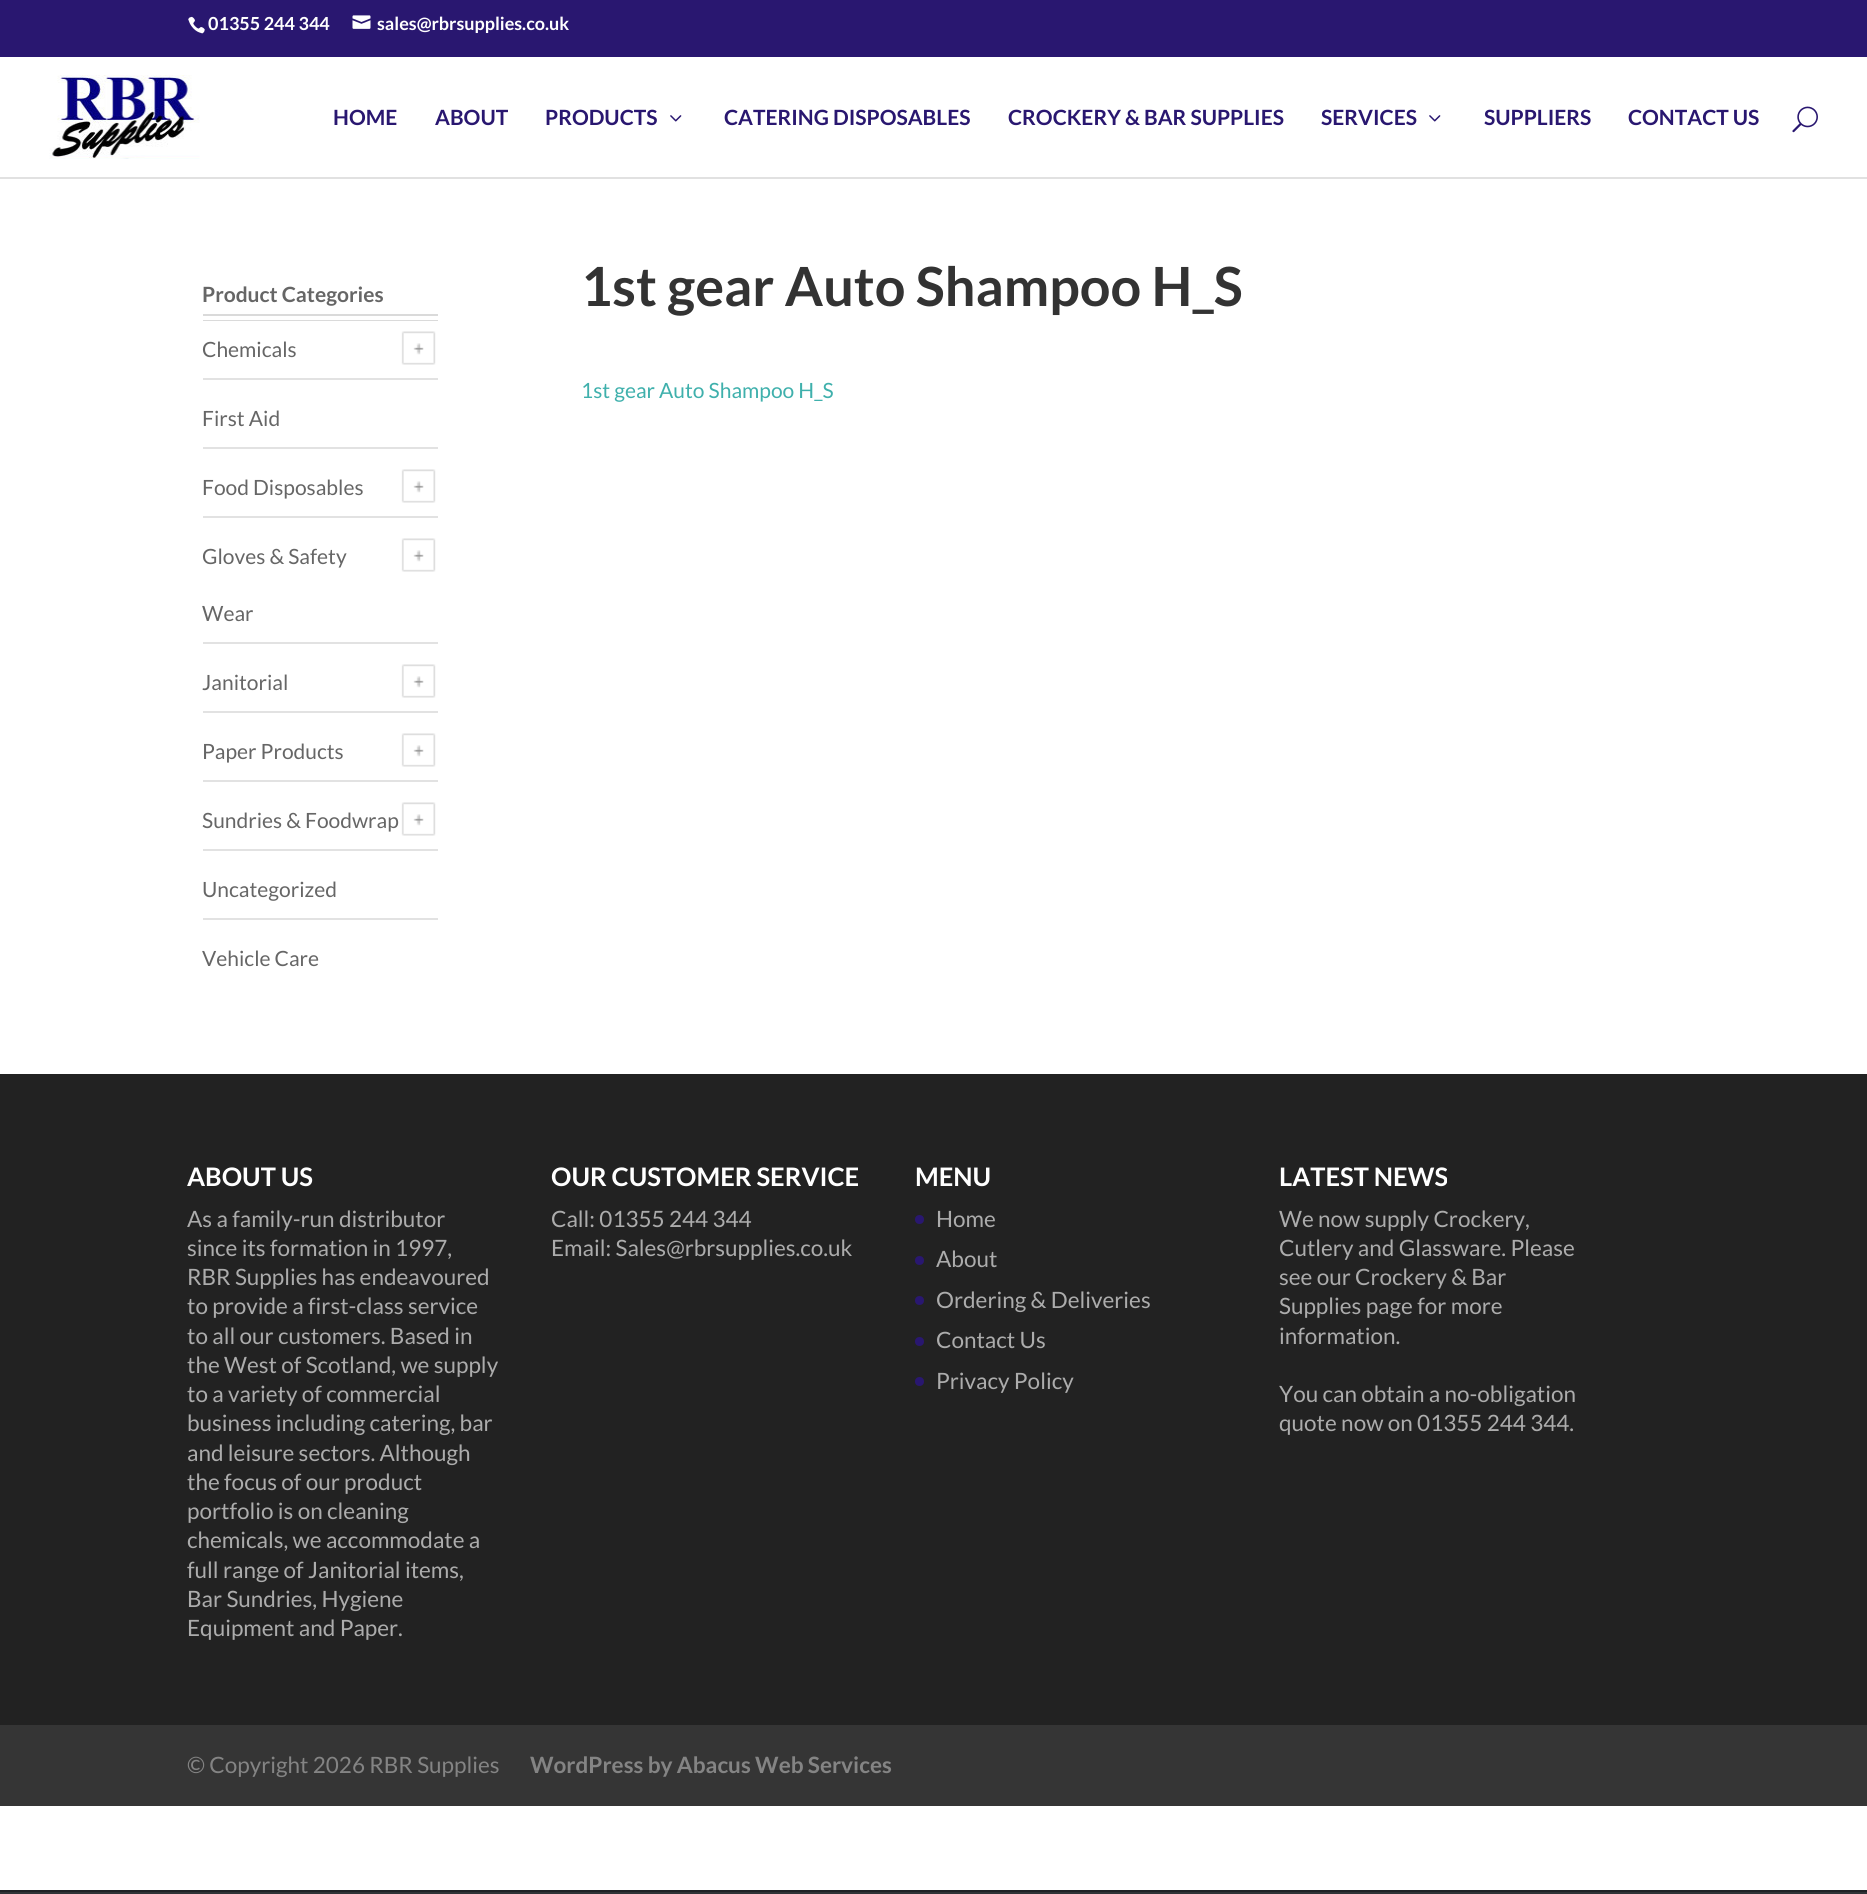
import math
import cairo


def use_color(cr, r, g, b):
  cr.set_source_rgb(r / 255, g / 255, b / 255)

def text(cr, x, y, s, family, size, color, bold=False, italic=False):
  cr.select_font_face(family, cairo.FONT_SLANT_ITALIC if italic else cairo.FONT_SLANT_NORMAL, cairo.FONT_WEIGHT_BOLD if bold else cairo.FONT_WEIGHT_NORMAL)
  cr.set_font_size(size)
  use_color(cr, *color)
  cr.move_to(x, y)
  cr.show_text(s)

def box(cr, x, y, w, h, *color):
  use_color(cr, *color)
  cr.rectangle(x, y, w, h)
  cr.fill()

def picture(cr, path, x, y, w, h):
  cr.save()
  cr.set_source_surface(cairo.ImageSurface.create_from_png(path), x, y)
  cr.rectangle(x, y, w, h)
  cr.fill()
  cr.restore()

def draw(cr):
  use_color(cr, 255, 255, 255)
  cr.paint()
  box(cr, 0, 0, 1867, 57, 41, 23, 112)
  picture(cr, "img_01.png", 188, 16, 17, 18)
  picture(cr, "img_02.png", 352, 15, 19, 14)
  box(cr, 0, 177, 1867, 2, 225, 225, 225)
  picture(cr, "img_03.png", 49, 75, 151, 84)
  picture(cr, "img_04.png", 670, 115, 12, 7)
  picture(cr, "img_04.png", 1429, 115, 12, 7)
  picture(cr, "img_05.png", 1792, 106, 26, 27)
  box(cr, 203, 314, 235, 2, 218, 218, 218)
  box(cr, 203, 320, 235, 1, 218, 218, 218)
  box(cr, 203, 378, 235, 2, 226, 226, 226)
  picture(cr, "img_06.png", 401, 331, 35, 34)
  box(cr, 203, 447, 235, 2, 226, 226, 226)
  box(cr, 203, 516, 235, 2, 226, 226, 226)
  picture(cr, "img_06.png", 401, 469, 35, 34)
  box(cr, 203, 642, 235, 2, 226, 226, 226)
  picture(cr, "img_06.png", 401, 538, 35, 34)
  box(cr, 203, 711, 235, 2, 226, 226, 226)
  picture(cr, "img_06.png", 401, 664, 35, 34)
  box(cr, 203, 780, 235, 2, 226, 226, 226)
  picture(cr, "img_06.png", 401, 733, 35, 34)
  box(cr, 203, 849, 235, 2, 226, 226, 226)
  picture(cr, "img_06.png", 401, 802, 35, 34)
  box(cr, 203, 918, 235, 2, 226, 226, 226)
  box(cr, 0, 1074, 1867, 651, 34, 34, 34)
  use_color(cr, 41, 23, 112)
  cr.arc(919.5, 1219.5, 4.5, 0, 2 * math.pi)
  cr.fill()
  cr.arc(919.5, 1260.5, 4.5, 0, 2 * math.pi)
  cr.fill()
  cr.arc(919.5, 1300.5, 4.5, 0, 2 * math.pi)
  cr.fill()
  cr.arc(919.5, 1341.5, 4.5, 0, 2 * math.pi)
  cr.fill()
  cr.arc(919.5, 1381.5, 4.5, 0, 2 * math.pi)
  cr.fill()
  box(cr, 0, 1725, 1867, 81, 53, 53, 53)
  box(cr, 0, 1890, 1867, 2, 32, 34, 38)
  box(cr, 0, 1892, 1867, 2, 48, 51, 55)
  text(cr, 208, 30, "01355 244 344", "Lato", 18, (255, 255, 255), bold=True)
  text(cr, 377, 30, "sales@rbrsupplies.co.uk", "Lato", 18, (255, 255, 255), bold=True)
  text(cr, 333, 125, "HOME", "Lato", 21, (41, 23, 112), bold=True)
  text(cr, 435, 125, "ABOUT", "Lato", 21, (41, 23, 112), bold=True)
  text(cr, 545, 125, "PRODUCTS", "Lato", 21, (41, 23, 112), bold=True)
  text(cr, 724, 125, "CATERING DISPOSABLES", "Lato", 21, (41, 23, 112), bold=True)
  text(cr, 1008, 125, "CROCKERY & BAR SUPPLIES", "Lato", 21, (41, 23, 112), bold=True)
  text(cr, 1321, 125, "SERVICES", "Lato", 21, (41, 23, 112), bold=True)
  text(cr, 1484, 125, "SUPPLIERS", "Lato", 21, (41, 23, 112), bold=True)
  text(cr, 1628, 125, "CONTACT US", "Lato", 21, (41, 23, 112), bold=True)
  text(cr, 202, 302, "Product Categories", "Lato", 21, (102, 102, 102), bold=True)
  text(cr, 202, 357, "Chemicals", "Lato", 21, (102, 102, 102))
  text(cr, 202, 426, "First Aid", "Lato", 21, (102, 102, 102))
  text(cr, 202, 495, "Food Disposables", "Lato", 21, (102, 102, 102))
  text(cr, 202, 564, "Gloves & Safety", "Lato", 21, (102, 102, 102))
  text(cr, 202, 621, "Wear", "Lato", 21, (102, 102, 102))
  text(cr, 202, 690, "Janitorial", "Lato", 21, (102, 102, 102))
  text(cr, 202, 759, "Paper Products", "Lato", 21, (102, 102, 102))
  text(cr, 202, 828, "Sundries & Foodwrap", "Lato", 21, (102, 102, 102))
  text(cr, 202, 897, "Uncategorized", "Lato", 21, (102, 102, 102))
  text(cr, 202, 966, "Vehicle Care", "Lato", 21, (102, 102, 102))
  text(cr, 581, 306, "1st gear Auto Shampoo H_S", "Lato", 54, (51, 51, 51), bold=True)
  text(cr, 581, 398, "1st gear Auto Shampoo H_S", "Lato", 21, (63, 176, 172))
  text(cr, 187, 1186, "ABOUT US", "Lato", 25.5, (255, 255, 255), bold=True)
  text(cr, 187, 1227, "As a family-run distributor", "Lato", 22.5, (172, 172, 172))
  text(cr, 187, 1256, "since its formation in 1997,", "Lato", 22.5, (172, 172, 172))
  text(cr, 187, 1285, "RBR Supplies has endeavoured", "Lato", 22.5, (172, 172, 172))
  text(cr, 187, 1314, "to provide a first-class service", "Lato", 22.5, (172, 172, 172))
  text(cr, 187, 1344, "to all our customers. Based in", "Lato", 22.5, (172, 172, 172))
  text(cr, 187, 1373, "the West of Scotland, we supply", "Lato", 22.5, (172, 172, 172))
  text(cr, 187, 1402, "to a variety of commercial", "Lato", 22.5, (172, 172, 172))
  text(cr, 187, 1431, "business including catering, bar", "Lato", 22.5, (172, 172, 172))
  text(cr, 187, 1461, "and leisure sectors. Although", "Lato", 22.5, (172, 172, 172))
  text(cr, 187, 1490, "the focus of our product", "Lato", 22.5, (172, 172, 172))
  text(cr, 187, 1519, "portfolio is on cleaning", "Lato", 22.5, (172, 172, 172))
  text(cr, 187, 1548, "chemicals, we accommodate a", "Lato", 22.5, (172, 172, 172))
  text(cr, 187, 1578, "full range of Janitorial items,", "Lato", 22.5, (172, 172, 172))
  text(cr, 187, 1607, "Bar Sundries, Hygiene", "Lato", 22.5, (172, 172, 172))
  text(cr, 187, 1636, "Equipment and Paper.", "Lato", 22.5, (172, 172, 172))
  text(cr, 551, 1186, "OUR CUSTOMER SERVICE", "Lato", 25.5, (255, 255, 255), bold=True)
  text(cr, 551, 1227, "Call: 01355 244 344", "Lato", 22.5, (172, 172, 172))
  text(cr, 551, 1256, "Email: Sales@rbrsupplies.co.uk", "Lato", 22.5, (172, 172, 172))
  text(cr, 915, 1186, "MENU", "Lato", 25.5, (255, 255, 255), bold=True)
  text(cr, 936, 1227, "Home", "Lato", 22.5, (172, 172, 172))
  text(cr, 936, 1267, "About", "Lato", 22.5, (172, 172, 172))
  text(cr, 936, 1308, "Ordering & Deliveries", "Lato", 22.5, (172, 172, 172))
  text(cr, 936, 1348, "Contact Us", "Lato", 22.5, (172, 172, 172))
  text(cr, 936, 1389, "Privacy Policy", "Lato", 22.5, (172, 172, 172))
  text(cr, 1279, 1186, "LATEST NEWS", "Lato", 25.5, (255, 255, 255), bold=True)
  text(cr, 1279, 1227, "We now supply Crockery,", "Lato", 22.5, (172, 172, 172))
  text(cr, 1279, 1256, "Cutlery and Glassware. Please", "Lato", 22.5, (172, 172, 172))
  text(cr, 1279, 1285, "see our Crockery & Bar", "Lato", 22.5, (172, 172, 172))
  text(cr, 1279, 1314, "Supplies page for more", "Lato", 22.5, (172, 172, 172))
  text(cr, 1279, 1344, "information.", "Lato", 22.5, (172, 172, 172))
  text(cr, 1279, 1402, "You can obtain a no-obligation", "Lato", 22.5, (172, 172, 172))
  text(cr, 1279, 1431, "quote now on 01355 244 344.", "Lato", 22.5, (172, 172, 172))
  text(cr, 187, 1773, "© Copyright 2026 RBR Supplies", "Lato", 22.5, (132, 132, 132))
  text(cr, 530, 1773, "WordPress by Abacus Web Services", "Lato", 22.5, (132, 132, 132), bold=True)


surface = cairo.ImageSurface(cairo.FORMAT_RGB24, 1867, 1894)
cr = cairo.Context(surface)
options = cairo.FontOptions()
options.set_hint_metrics(cairo.HINT_METRICS_OFF)
options.set_hint_style(cairo.HINT_STYLE_NONE)
cr.set_font_options(options)
cr.set_miter_limit(4)
draw(cr)
surface.write_to_png("out.png")
